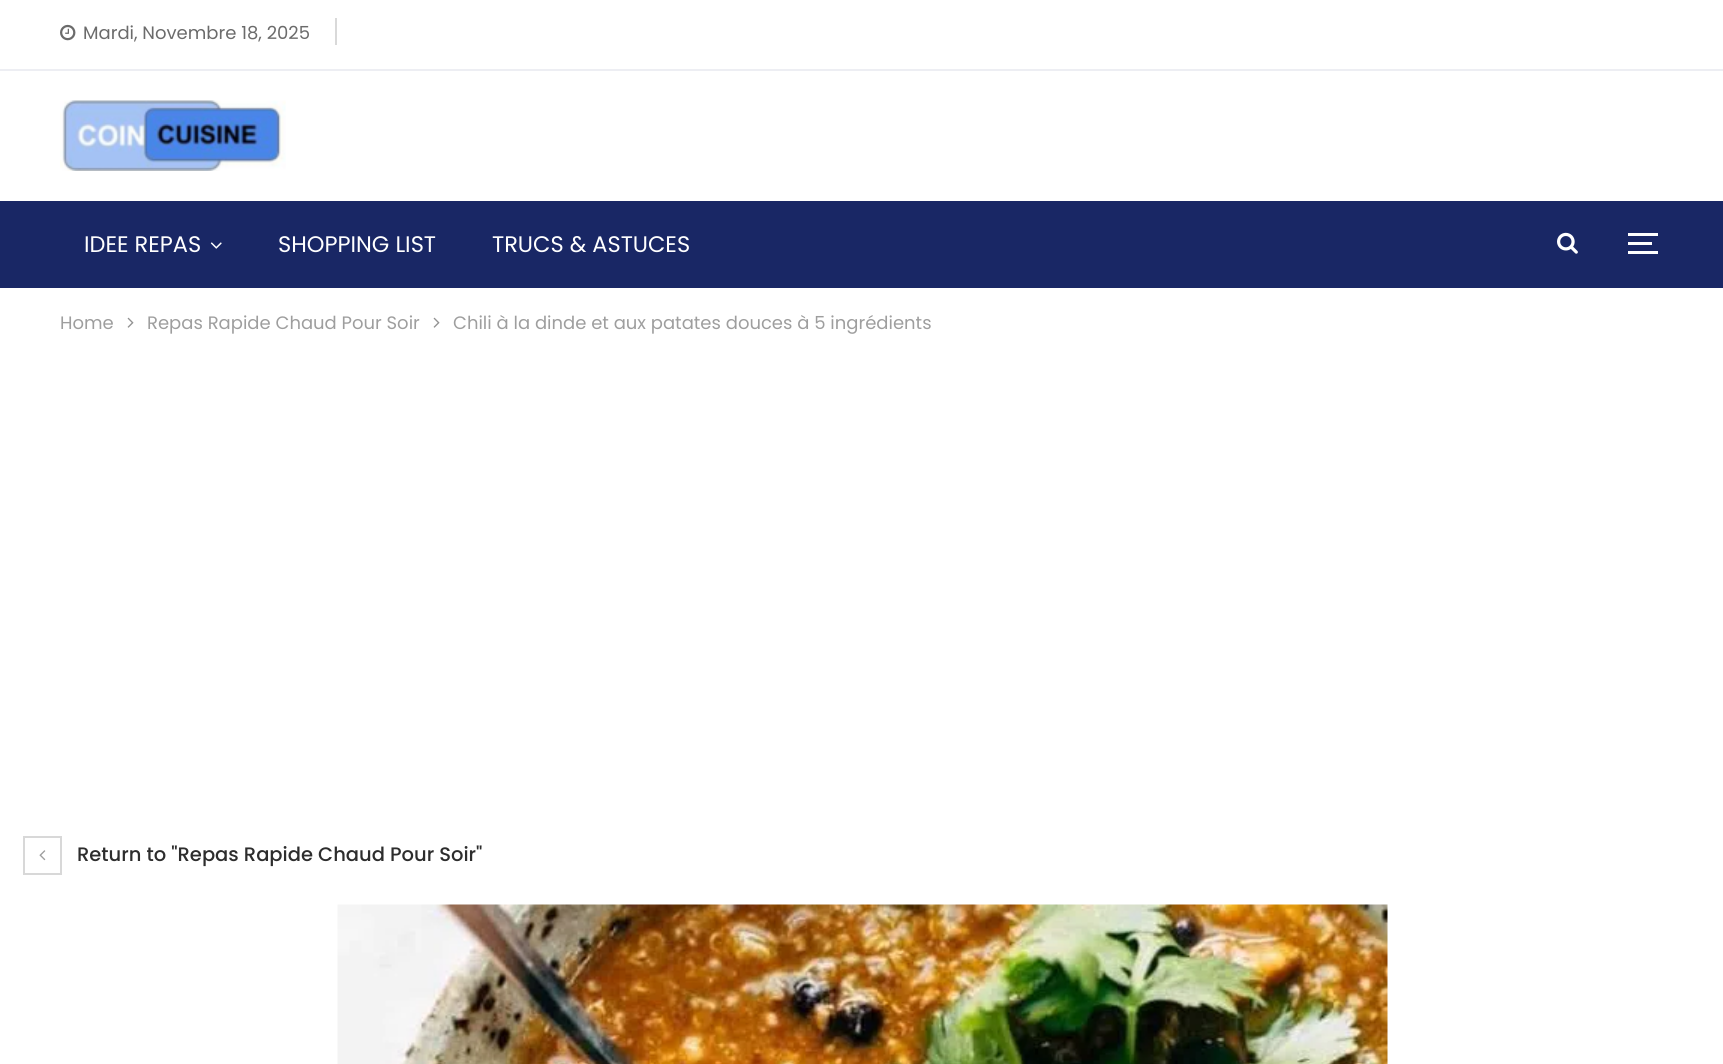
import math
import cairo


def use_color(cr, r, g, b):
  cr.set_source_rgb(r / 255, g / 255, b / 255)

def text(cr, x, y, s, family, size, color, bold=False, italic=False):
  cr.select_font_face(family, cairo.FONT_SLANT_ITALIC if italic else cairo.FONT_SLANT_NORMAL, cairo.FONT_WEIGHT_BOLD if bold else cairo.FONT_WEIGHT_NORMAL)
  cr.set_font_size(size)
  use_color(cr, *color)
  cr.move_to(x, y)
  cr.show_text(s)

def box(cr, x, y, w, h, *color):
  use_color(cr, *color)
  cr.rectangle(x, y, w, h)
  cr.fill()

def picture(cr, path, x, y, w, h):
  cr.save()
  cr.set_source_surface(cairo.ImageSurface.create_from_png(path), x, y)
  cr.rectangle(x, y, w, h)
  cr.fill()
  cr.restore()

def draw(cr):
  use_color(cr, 255, 255, 255)
  cr.paint()
  box(cr, 0, 69, 1723, 2, 237, 238, 243)
  picture(cr, "img_01.png", 60, 24, 16, 17)
  box(cr, 335, 18, 2, 27, 217, 217, 217)
  picture(cr, "img_02.png", 60, 100, 226, 71)
  box(cr, 0, 201, 1723, 87, 25, 39, 101)
  picture(cr, "img_03.png", 210, 242, 12, 7)
  picture(cr, "img_04.png", 1557, 232, 21, 22)
  box(cr, 1628, 242, 24, 3, 255, 255, 255)
  box(cr, 1628, 233, 30, 3, 255, 255, 255)
  box(cr, 1628, 251, 30, 3, 255, 255, 255)
  picture(cr, "img_05.png", 127, 317, 7, 11)
  picture(cr, "img_05.png", 433, 317, 7, 11)
  cr.rectangle(24, 837, 37, 37)
  use_color(cr, 216, 216, 216)
  cr.stroke()
  picture(cr, "img_06.png", 39, 850, 7, 11)
  picture(cr, "img_07.png", 337, 904, 1051, 160)
  text(cr, 83, 39, "Mardi, Novembre 18, 2025", "Poppins", 18, (107, 107, 107))
  text(cr, 84, 252, "IDEE REPAS", "Poppins", 22.5, (255, 255, 255))
  text(cr, 278, 252, "SHOPPING LIST", "Poppins", 22.5, (255, 255, 255))
  text(cr, 492, 252, "TRUCS & ASTUCES", "Poppins", 22.5, (255, 255, 255))
  text(cr, 60, 329, "Home", "Poppins", 18, (158, 158, 158))
  text(cr, 147, 329, "Repas Rapide Chaud Pour Soir", "Poppins", 18, (158, 158, 158))
  text(cr, 453, 329, "Chili à la dinde et aux patates douces à 5 ingrédients", "Poppins", 18, (158, 158, 158))
  text(cr, 77, 861, "Return to \"Repas Rapide Chaud Pour Soir\"", "Poppins Medium", 19.5, (45, 45, 45))


surface = cairo.ImageSurface(cairo.FORMAT_RGB24, 1723, 1064)
cr = cairo.Context(surface)
options = cairo.FontOptions()
options.set_hint_metrics(cairo.HINT_METRICS_OFF)
options.set_hint_style(cairo.HINT_STYLE_NONE)
cr.set_font_options(options)
cr.set_miter_limit(4)
draw(cr)
surface.write_to_png("out.png")
